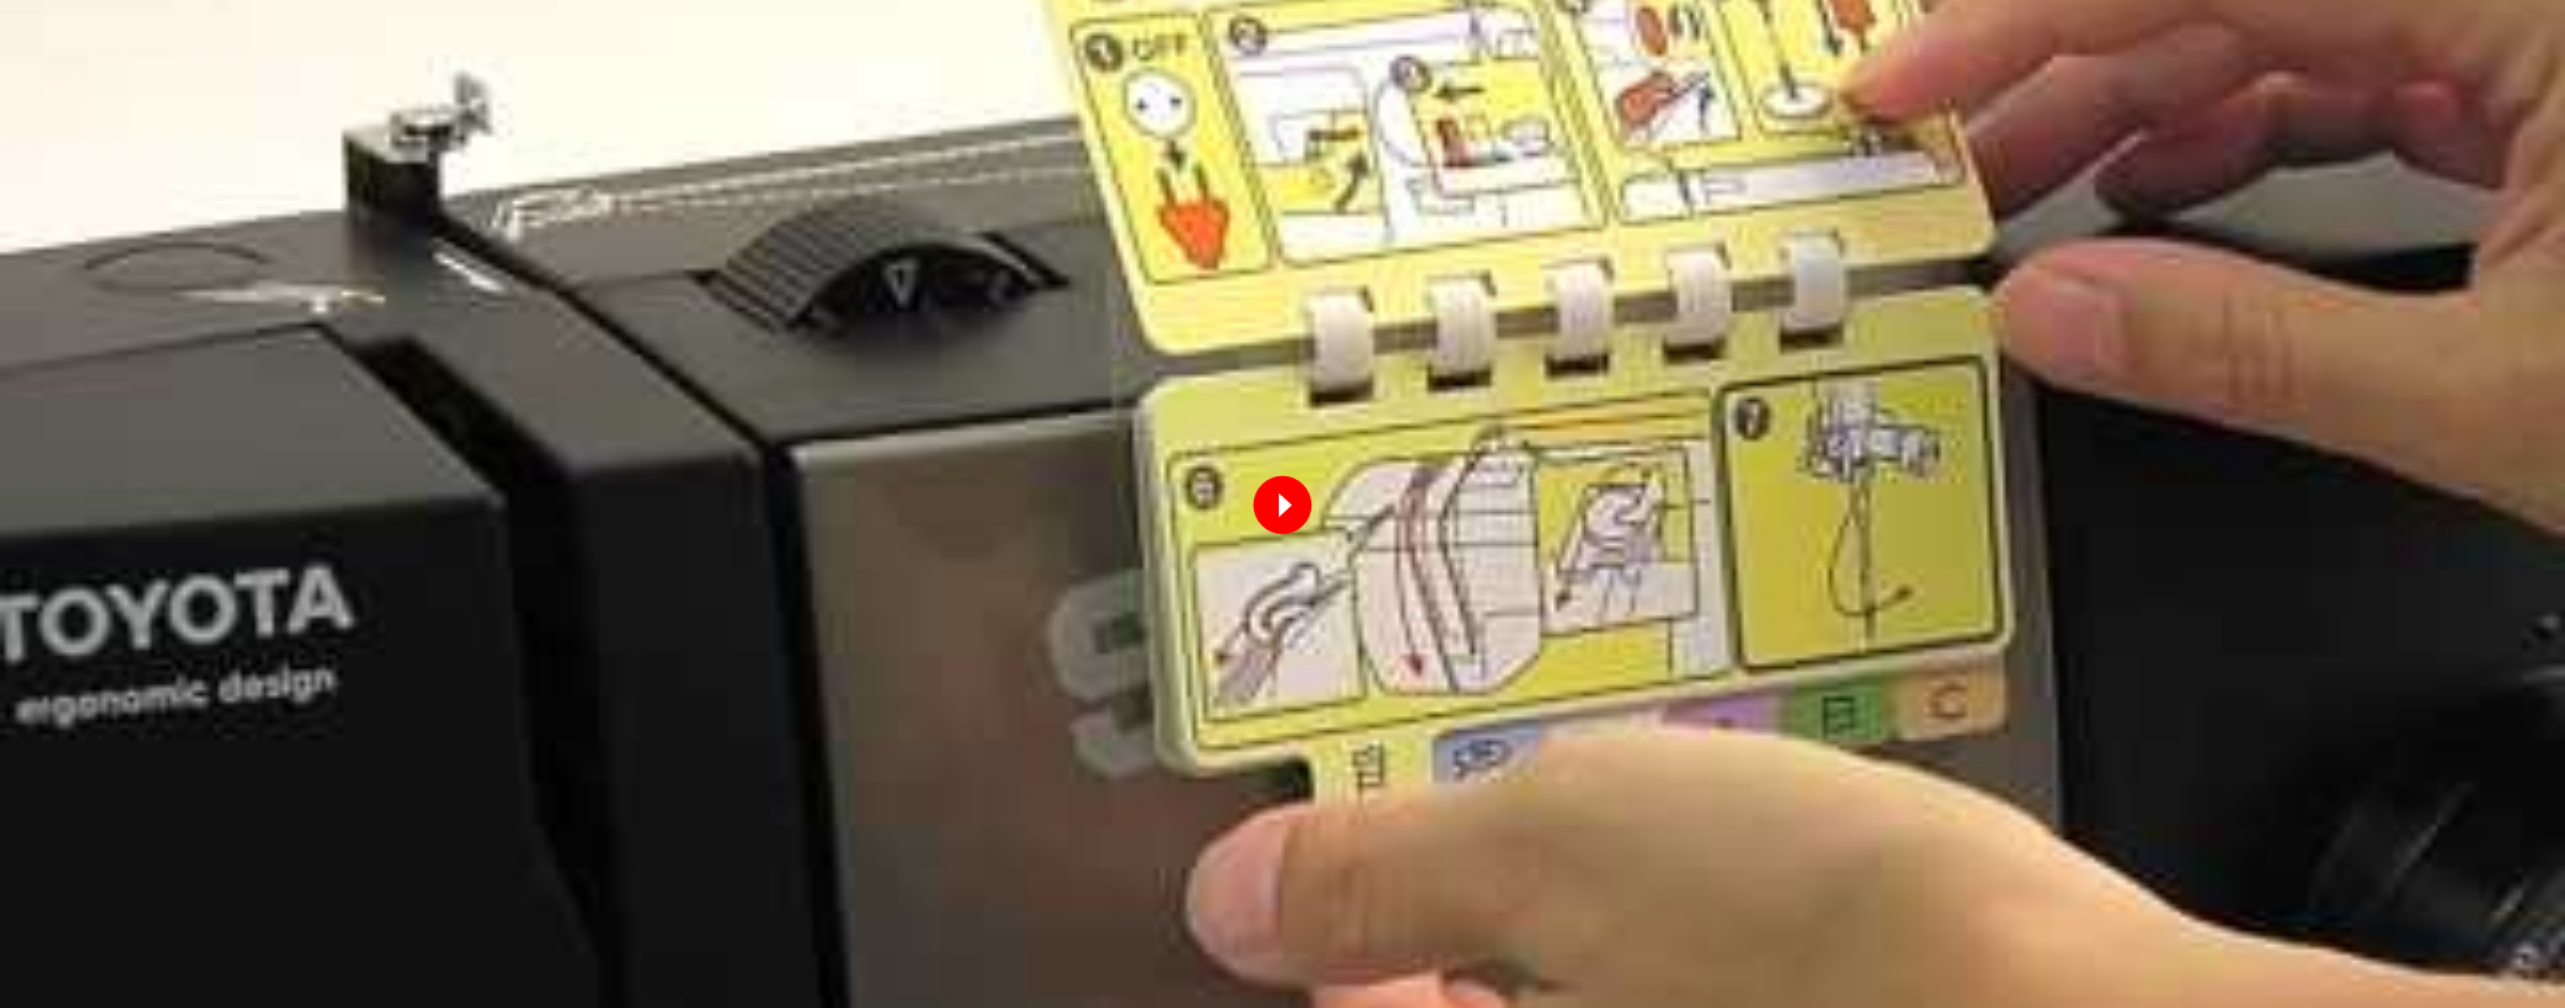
import math
import cairo


def use_color(cr, r, g, b):
  cr.set_source_rgb(r / 255, g / 255, b / 255)

def picture(cr, path, x, y, w, h):
  cr.save()
  cr.set_source_surface(cairo.ImageSurface.create_from_png(path), x, y)
  cr.rectangle(x, y, w, h)
  cr.fill()
  cr.restore()

def draw(cr):
  use_color(cr, 255, 255, 255)
  cr.paint()
  picture(cr, "img_01.png", 0, 0, 2565, 1008)
  picture(cr, "img_02.png", 1252, 475, 61, 61)


surface = cairo.ImageSurface(cairo.FORMAT_RGB24, 2565, 1008)
cr = cairo.Context(surface)
options = cairo.FontOptions()
options.set_hint_metrics(cairo.HINT_METRICS_OFF)
options.set_hint_style(cairo.HINT_STYLE_NONE)
cr.set_font_options(options)
cr.set_miter_limit(4)
draw(cr)
surface.write_to_png("out.png")
